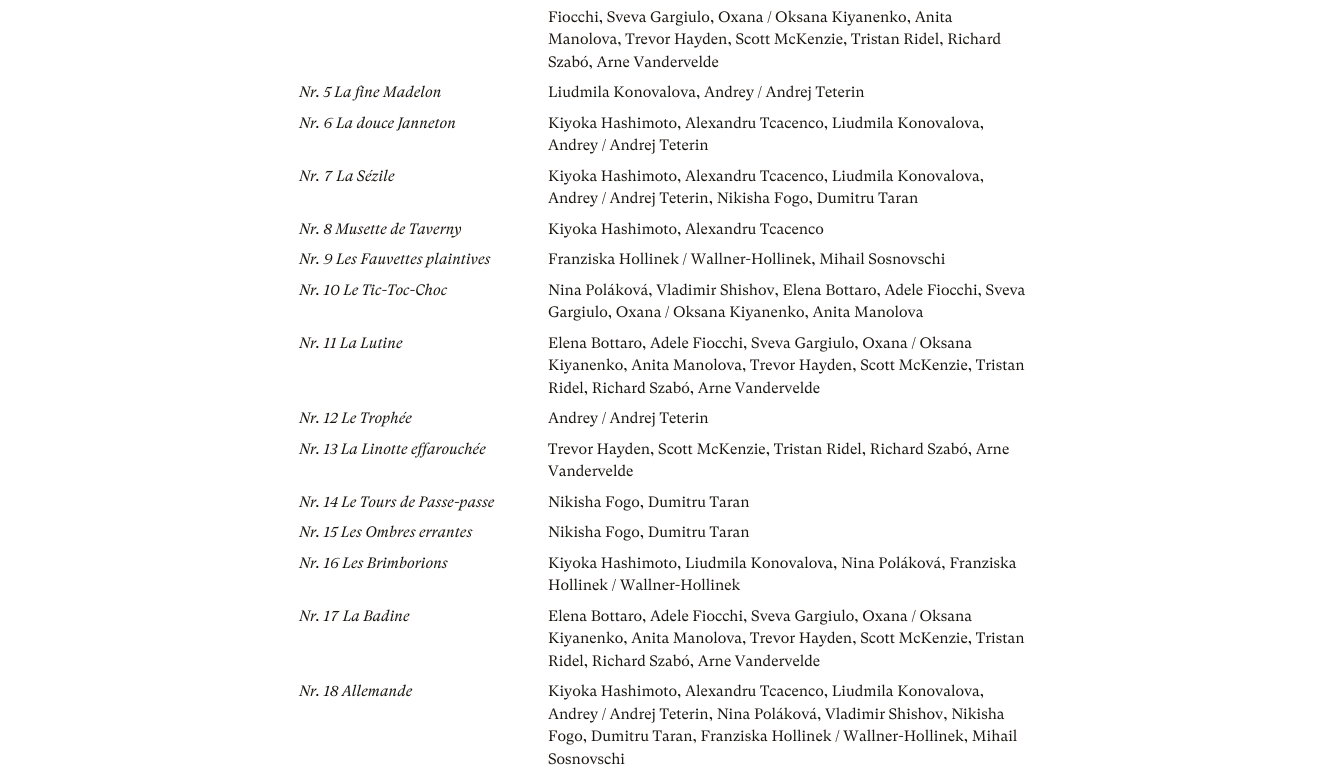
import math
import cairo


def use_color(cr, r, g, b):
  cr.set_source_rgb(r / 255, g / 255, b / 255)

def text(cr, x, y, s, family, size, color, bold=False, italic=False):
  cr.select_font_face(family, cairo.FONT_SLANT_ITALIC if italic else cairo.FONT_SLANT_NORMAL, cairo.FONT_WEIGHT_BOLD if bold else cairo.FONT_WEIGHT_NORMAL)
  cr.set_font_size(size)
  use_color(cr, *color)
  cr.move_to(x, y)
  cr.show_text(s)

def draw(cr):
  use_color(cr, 255, 255, 255)
  cr.paint()
  text(cr, 548, 22, "Fiocchi, Sveva Gargiulo, Oxana / Oksana Kiyanenko, Anita", "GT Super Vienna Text", 15, (25, 20, 14))
  text(cr, 548, 44, "Manolova, Trevor Hayden, Scott McKenzie, Tristan Ridel, Richard", "GT Super Vienna Text", 15, (25, 20, 14))
  text(cr, 548, 67, "Szabó, Arne Vandervelde", "GT Super Vienna Text", 15, (25, 20, 14))
  text(cr, 299, 97, "Nr. 5 La fine Madelon", "GT Super Vienna Text", 15, (25, 20, 14), italic=True)
  text(cr, 548, 97, "Liudmila Konovalova, Andrey / Andrej Teterin", "GT Super Vienna Text", 15, (25, 20, 14))
  text(cr, 299, 128, "Nr. 6 La douce Janneton", "GT Super Vienna Text", 15, (25, 20, 14), italic=True)
  text(cr, 548, 128, "Kiyoka Hashimoto, Alexandru Tcacenco, Liudmila Konovalova,", "GT Super Vienna Text", 15, (25, 20, 14))
  text(cr, 548, 150, "Andrey / Andrej Teterin", "GT Super Vienna Text", 15, (25, 20, 14))
  text(cr, 299, 181, "Nr. 7 La Sézile", "GT Super Vienna Text", 15, (25, 20, 14), italic=True)
  text(cr, 548, 181, "Kiyoka Hashimoto, Alexandru Tcacenco, Liudmila Konovalova,", "GT Super Vienna Text", 15, (25, 20, 14))
  text(cr, 548, 203, "Andrey / Andrej Teterin, Nikisha Fogo, Dumitru Taran", "GT Super Vienna Text", 15, (25, 20, 14))
  text(cr, 299, 234, "Nr. 8 Musette de Taverny", "GT Super Vienna Text", 15, (25, 20, 14), italic=True)
  text(cr, 548, 234, "Kiyoka Hashimoto, Alexandru Tcacenco", "GT Super Vienna Text", 15, (25, 20, 14))
  text(cr, 299, 264, "Nr. 9 Les Fauvettes plaintives", "GT Super Vienna Text", 15, (25, 20, 14), italic=True)
  text(cr, 548, 264, "Franziska Hollinek / Wallner-Hollinek, Mihail Sosnovschi", "GT Super Vienna Text", 15, (25, 20, 14))
  text(cr, 299, 295, "Nr. 10 Le Tic-Toc-Choc", "GT Super Vienna Text", 15, (25, 20, 14), italic=True)
  text(cr, 548, 295, "Nina Poláková, Vladimir Shishov, Elena Bottaro, Adele Fiocchi, Sveva", "GT Super Vienna Text", 15, (25, 20, 14))
  text(cr, 548, 317, "Gargiulo, Oxana / Oksana Kiyanenko, Anita Manolova", "GT Super Vienna Text", 15, (25, 20, 14))
  text(cr, 299, 348, "Nr. 11 La Lutine", "GT Super Vienna Text", 15, (25, 20, 14), italic=True)
  text(cr, 548, 348, "Elena Bottaro, Adele Fiocchi, Sveva Gargiulo, Oxana / Oksana", "GT Super Vienna Text", 15, (25, 20, 14))
  text(cr, 548, 370, "Kiyanenko, Anita Manolova, Trevor Hayden, Scott McKenzie, Tristan", "GT Super Vienna Text", 15, (25, 20, 14))
  text(cr, 548, 393, "Ridel, Richard Szabó, Arne Vandervelde", "GT Super Vienna Text", 15, (25, 20, 14))
  text(cr, 299, 423, "Nr. 12 Le Trophée", "GT Super Vienna Text", 15, (25, 20, 14), italic=True)
  text(cr, 548, 423, "Andrey / Andrej Teterin", "GT Super Vienna Text", 15, (25, 20, 14))
  text(cr, 299, 454, "Nr. 13 La Linotte effarouchée", "GT Super Vienna Text", 15, (25, 20, 14), italic=True)
  text(cr, 548, 454, "Trevor Hayden, Scott McKenzie, Tristan Ridel, Richard Szabó, Arne", "GT Super Vienna Text", 15, (25, 20, 14))
  text(cr, 548, 476, "Vandervelde", "GT Super Vienna Text", 15, (25, 20, 14))
  text(cr, 299, 507, "Nr. 14 Le Tours de Passe-passe", "GT Super Vienna Text", 15, (25, 20, 14), italic=True)
  text(cr, 548, 507, "Nikisha Fogo, Dumitru Taran", "GT Super Vienna Text", 15, (25, 20, 14))
  text(cr, 299, 537, "Nr. 15 Les Ombres errantes", "GT Super Vienna Text", 15, (25, 20, 14), italic=True)
  text(cr, 548, 537, "Nikisha Fogo, Dumitru Taran", "GT Super Vienna Text", 15, (25, 20, 14))
  text(cr, 299, 568, "Nr. 16 Les Brimborions", "GT Super Vienna Text", 15, (25, 20, 14), italic=True)
  text(cr, 548, 568, "Kiyoka Hashimoto, Liudmila Konovalova, Nina Poláková, Franziska", "GT Super Vienna Text", 15, (25, 20, 14))
  text(cr, 548, 590, "Hollinek / Wallner-Hollinek", "GT Super Vienna Text", 15, (25, 20, 14))
  text(cr, 299, 621, "Nr. 17 La Badine", "GT Super Vienna Text", 15, (25, 20, 14), italic=True)
  text(cr, 548, 621, "Elena Bottaro, Adele Fiocchi, Sveva Gargiulo, Oxana / Oksana", "GT Super Vienna Text", 15, (25, 20, 14))
  text(cr, 548, 643, "Kiyanenko, Anita Manolova, Trevor Hayden, Scott McKenzie, Tristan", "GT Super Vienna Text", 15, (25, 20, 14))
  text(cr, 548, 666, "Ridel, Richard Szabó, Arne Vandervelde", "GT Super Vienna Text", 15, (25, 20, 14))
  text(cr, 299, 696, "Nr. 18 Allemande", "GT Super Vienna Text", 15, (25, 20, 14), italic=True)
  text(cr, 548, 696, "Kiyoka Hashimoto, Alexandru Tcacenco, Liudmila Konovalova,", "GT Super Vienna Text", 15, (25, 20, 14))
  text(cr, 548, 719, "Andrey / Andrej Teterin, Nina Poláková, Vladimir Shishov, Nikisha", "GT Super Vienna Text", 15, (25, 20, 14))
  text(cr, 548, 741, "Fogo, Dumitru Taran, Franziska Hollinek / Wallner-Hollinek, Mihail", "GT Super Vienna Text", 15, (25, 20, 14))
  text(cr, 548, 764, "Sosnovschi", "GT Super Vienna Text", 15, (25, 20, 14))


surface = cairo.ImageSurface(cairo.FORMAT_RGB24, 1328, 774)
cr = cairo.Context(surface)
options = cairo.FontOptions()
options.set_hint_metrics(cairo.HINT_METRICS_OFF)
options.set_hint_style(cairo.HINT_STYLE_NONE)
cr.set_font_options(options)
cr.set_miter_limit(4)
draw(cr)
surface.write_to_png("out.png")
